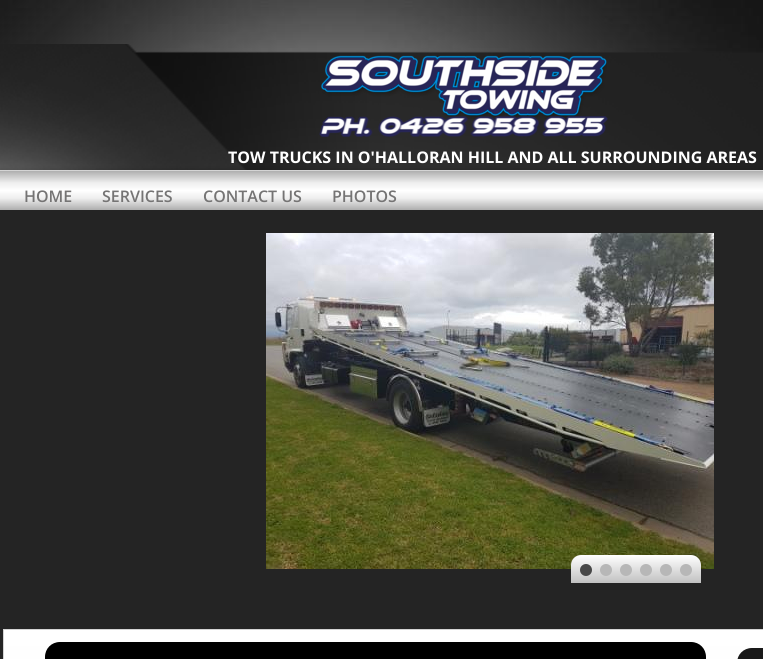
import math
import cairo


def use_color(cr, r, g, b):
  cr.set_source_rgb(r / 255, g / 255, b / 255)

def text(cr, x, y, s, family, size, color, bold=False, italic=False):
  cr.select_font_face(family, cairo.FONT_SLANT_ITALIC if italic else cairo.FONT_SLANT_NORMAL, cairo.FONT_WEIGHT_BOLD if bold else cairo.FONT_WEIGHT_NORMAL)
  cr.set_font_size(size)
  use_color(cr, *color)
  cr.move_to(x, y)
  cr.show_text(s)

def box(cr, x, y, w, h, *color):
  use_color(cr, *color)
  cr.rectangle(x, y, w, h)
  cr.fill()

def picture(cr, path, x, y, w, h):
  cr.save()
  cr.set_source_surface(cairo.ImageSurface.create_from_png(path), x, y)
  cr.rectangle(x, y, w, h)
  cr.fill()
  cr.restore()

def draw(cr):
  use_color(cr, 255, 255, 255)
  cr.paint()
  picture(cr, "img_01.png", 0, 0, 763, 53)
  box(cr, 0, 210, 763, 449, 36, 36, 36)
  picture(cr, "img_02.png", 0, 44, 763, 126)
  picture(cr, "img_03.png", 321, 55, 286, 64)
  picture(cr, "img_04.png", 319, 116, 289, 21)
  gradient = cairo.LinearGradient(490, 171, 490, 210)
  gradient.add_color_stop_rgba(0, 0.682, 0.682, 0.682, 1)
  gradient.add_color_stop_rgba(0.3, 0.933, 0.933, 0.933, 1)
  gradient.add_color_stop_rgba(0.5, 1, 1, 1, 1)
  gradient.add_color_stop_rgba(0.7, 0.933, 0.933, 0.933, 1)
  gradient.add_color_stop_rgba(1, 0.682, 0.682, 0.682, 1)
  cr.set_source(gradient)
  cr.rectangle(0, 171, 763, 39)
  cr.fill()
  box(cr, 0, 170, 763, 1, 212, 212, 212)
  picture(cr, "img_05.png", 266, 233, 448, 336)
  gradient = cairo.LinearGradient(636, 555, 636, 583)
  gradient.add_color_stop_rgba(0, 1, 1, 1, 1)
  gradient.add_color_stop_rgba(1, 0.757, 0.757, 0.757, 1)
  cr.set_source(gradient)
  cr.new_path()
  cr.move_to(581, 555)
  cr.line_to(691, 555)
  cr.curve_to(696.5, 555, 701, 559.5, 701, 565)
  cr.line_to(701, 583)
  cr.line_to(571, 583)
  cr.line_to(571, 565)
  cr.curve_to(571, 559.5, 575.5, 555, 581, 555)
  cr.close_path()
  cr.fill()
  use_color(cr, 71, 71, 71)
  cr.arc(586, 570, 6, 0, 2 * math.pi)
  cr.fill()
  use_color(cr, 183, 183, 183)
  cr.arc(606, 570, 6, 0, 2 * math.pi)
  cr.fill()
  cr.arc(626, 570, 6, 0, 2 * math.pi)
  cr.fill()
  cr.arc(646, 570, 6, 0, 2 * math.pi)
  cr.fill()
  cr.arc(666, 570, 6, 0, 2 * math.pi)
  cr.fill()
  cr.arc(686, 570, 6, 0, 2 * math.pi)
  cr.fill()
  gradient = cairo.LinearGradient(488, 630, 488, 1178)
  gradient.add_color_stop_rgba(0, 1, 1, 1, 1)
  gradient.add_color_stop_rgba(1, 0.933, 0.933, 0.933, 1)
  cr.set_source(gradient)
  cr.rectangle(4, 630, 759, 29)
  cr.fill()
  cr.rectangle(3.5, 629.5, 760, 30)
  use_color(cr, 212, 212, 212)
  cr.set_line_width(1)
  cr.stroke()
  use_color(cr, 0, 0, 0)
  cr.new_path()
  cr.move_to(60, 642)
  cr.line_to(691, 642)
  cr.curve_to(699.5, 642, 706, 648.5, 706, 657)
  cr.line_to(706, 659)
  cr.line_to(45, 659)
  cr.line_to(45, 657)
  cr.curve_to(45, 648.5, 51.5, 642, 60, 642)
  cr.close_path()
  cr.fill()
  use_color(cr, 25, 25, 25)
  cr.new_path()
  cr.move_to(752, 648)
  cr.line_to(763, 648)
  cr.line_to(763, 659)
  cr.line_to(737, 659)
  cr.line_to(737, 663)
  cr.curve_to(737, 654.5, 743.5, 648, 752, 648)
  cr.close_path()
  cr.fill()
  text(cr, 228, 163, "TOW TRUCKS IN O'HALLORAN HILL AND ALL SURROUNDING AREAS", "Open Sans", 16, (255, 255, 255), bold=True)
  text(cr, 24, 202, "HOME", "Open Sans SemiBold", 16, (117, 116, 116))
  text(cr, 102, 202, "SERVICES", "Open Sans SemiBold", 16, (117, 116, 116))
  text(cr, 203, 202, "CONTACT US", "Open Sans SemiBold", 16, (117, 116, 116))
  text(cr, 332, 202, "PHOTOS", "Open Sans SemiBold", 16, (117, 116, 116))


surface = cairo.ImageSurface(cairo.FORMAT_RGB24, 763, 659)
cr = cairo.Context(surface)
options = cairo.FontOptions()
options.set_hint_metrics(cairo.HINT_METRICS_OFF)
options.set_hint_style(cairo.HINT_STYLE_NONE)
cr.set_font_options(options)
cr.set_miter_limit(4)
draw(cr)
surface.write_to_png("out.png")
